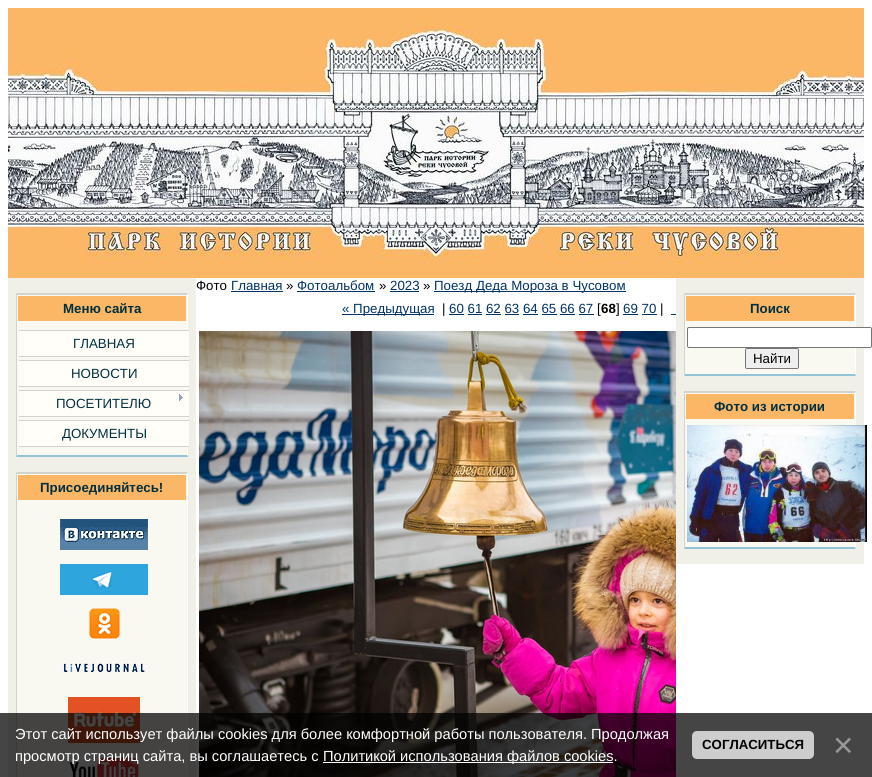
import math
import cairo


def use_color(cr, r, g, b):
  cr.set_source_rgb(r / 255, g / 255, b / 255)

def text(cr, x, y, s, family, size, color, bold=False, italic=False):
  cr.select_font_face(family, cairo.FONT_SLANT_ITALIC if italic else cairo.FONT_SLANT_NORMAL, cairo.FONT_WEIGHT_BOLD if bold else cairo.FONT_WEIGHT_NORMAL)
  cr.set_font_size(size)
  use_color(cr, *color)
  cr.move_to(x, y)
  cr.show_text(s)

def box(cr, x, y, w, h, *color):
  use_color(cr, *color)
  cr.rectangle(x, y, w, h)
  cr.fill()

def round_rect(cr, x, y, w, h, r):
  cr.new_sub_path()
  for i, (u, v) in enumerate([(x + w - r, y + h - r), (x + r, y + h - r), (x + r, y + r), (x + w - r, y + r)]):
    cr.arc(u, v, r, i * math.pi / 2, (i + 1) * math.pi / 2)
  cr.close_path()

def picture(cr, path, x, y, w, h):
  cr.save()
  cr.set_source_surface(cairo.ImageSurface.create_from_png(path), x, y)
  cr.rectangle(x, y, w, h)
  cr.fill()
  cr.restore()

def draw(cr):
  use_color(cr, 255, 255, 255)
  cr.paint()
  box(cr, 8, 8, 856, 270, 251, 183, 102)
  picture(cr, "img_01.png", 8, 23, 856, 241)
  box(cr, 231, 291, 52, 1, 0, 51, 102)
  box(cr, 297, 291, 78, 1, 0, 51, 102)
  box(cr, 390, 291, 29, 1, 0, 51, 102)
  box(cr, 434, 291, 192, 1, 0, 51, 102)
  box(cr, 342, 314, 92, 1, 0, 51, 102)
  box(cr, 449, 314, 15, 1, 0, 51, 102)
  box(cr, 623, 314, 15, 1, 0, 51, 102)
  box(cr, 468, 314, 14, 1, 0, 51, 102)
  box(cr, 486, 314, 15, 1, 0, 51, 102)
  box(cr, 505, 314, 14, 1, 0, 51, 102)
  box(cr, 523, 314, 15, 1, 0, 51, 102)
  box(cr, 542, 314, 15, 1, 0, 51, 102)
  box(cr, 560, 314, 15, 1, 0, 51, 102)
  box(cr, 579, 314, 15, 1, 0, 51, 102)
  box(cr, 642, 314, 15, 1, 0, 51, 102)
  box(cr, 671, 314, 5, 1, 0, 51, 102)
  picture(cr, "img_02.png", 199, 331, 477, 446)
  box(cr, 8, 278, 188, 499, 241, 240, 232)
  box(cr, 17, 322, 170, 133, 250, 249, 241)
  use_color(cr, 211, 210, 203)
  cr.new_path()
  cr.move_to(16, 293)
  cr.line_to(188, 293)
  cr.line_to(187, 295)
  cr.line_to(17, 295)
  cr.close_path()
  cr.fill()
  use_color(cr, 255, 255, 255)
  cr.new_path()
  cr.move_to(188, 293)
  cr.line_to(188, 457)
  cr.line_to(187, 455)
  cr.line_to(187, 295)
  cr.close_path()
  cr.fill()
  use_color(cr, 147, 195, 215)
  cr.new_path()
  cr.move_to(188, 457)
  cr.line_to(16, 457)
  cr.line_to(17, 455)
  cr.line_to(187, 455)
  cr.close_path()
  cr.fill()
  use_color(cr, 211, 210, 203)
  cr.new_path()
  cr.move_to(16, 457)
  cr.line_to(16, 293)
  cr.line_to(17, 295)
  cr.line_to(17, 455)
  cr.close_path()
  cr.fill()
  use_color(cr, 251, 183, 102)
  cr.rectangle(17.5, 295.5, 169, 26)
  cr.fill_preserve()
  use_color(cr, 250, 249, 241)
  cr.set_line_width(1)
  cr.stroke()
  box(cr, 19, 331, 170, 25, 255, 254, 249)
  box(cr, 19, 330, 170, 1, 211, 210, 203)
  box(cr, 19, 356, 170, 1, 211, 210, 203)
  box(cr, 19, 361, 170, 25, 255, 254, 249)
  box(cr, 19, 360, 170, 1, 211, 210, 203)
  box(cr, 19, 386, 170, 1, 211, 210, 203)
  box(cr, 19, 391, 170, 25, 255, 254, 249)
  box(cr, 19, 390, 170, 1, 211, 210, 203)
  box(cr, 19, 416, 170, 1, 211, 210, 203)
  picture(cr, "img_03.png", 179, 394, 4, 7)
  box(cr, 19, 421, 170, 25, 255, 254, 249)
  box(cr, 19, 420, 170, 1, 211, 210, 203)
  box(cr, 19, 446, 170, 1, 211, 210, 203)
  box(cr, 17, 501, 170, 276, 250, 249, 241)
  use_color(cr, 211, 210, 203)
  cr.new_path()
  cr.move_to(16, 472)
  cr.line_to(188, 472)
  cr.line_to(187, 474)
  cr.line_to(17, 474)
  cr.close_path()
  cr.fill()
  use_color(cr, 255, 255, 255)
  cr.new_path()
  cr.move_to(188, 472)
  cr.line_to(188, 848)
  cr.line_to(187, 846)
  cr.line_to(187, 474)
  cr.close_path()
  cr.fill()
  use_color(cr, 211, 210, 203)
  cr.new_path()
  cr.move_to(16, 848)
  cr.line_to(16, 472)
  cr.line_to(17, 474)
  cr.line_to(17, 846)
  cr.close_path()
  cr.fill()
  use_color(cr, 251, 183, 102)
  cr.rectangle(17.5, 474.5, 169, 26)
  cr.fill_preserve()
  use_color(cr, 250, 249, 241)
  cr.stroke()
  picture(cr, "img_04.png", 60, 519, 88, 31)
  picture(cr, "img_05.png", 60, 564, 88, 31)
  picture(cr, "img_06.png", 89, 608, 31, 31)
  picture(cr, "img_07.png", 63, 663, 82, 10)
  picture(cr, "img_08.png", 68, 697, 72, 46)
  picture(cr, "img_09.png", 68, 756, 72, 21)
  box(cr, 676, 278, 188, 286, 241, 240, 232)
  box(cr, 685, 322, 170, 52, 250, 249, 241)
  use_color(cr, 211, 210, 203)
  cr.new_path()
  cr.move_to(684, 293)
  cr.line_to(856, 293)
  cr.line_to(855, 295)
  cr.line_to(685, 295)
  cr.close_path()
  cr.fill()
  use_color(cr, 255, 255, 255)
  cr.new_path()
  cr.move_to(856, 293)
  cr.line_to(856, 376)
  cr.line_to(855, 374)
  cr.line_to(855, 295)
  cr.close_path()
  cr.fill()
  use_color(cr, 147, 195, 215)
  cr.new_path()
  cr.move_to(856, 376)
  cr.line_to(684, 376)
  cr.line_to(685, 374)
  cr.line_to(855, 374)
  cr.close_path()
  cr.fill()
  use_color(cr, 211, 210, 203)
  cr.new_path()
  cr.move_to(684, 376)
  cr.line_to(684, 293)
  cr.line_to(685, 295)
  cr.line_to(685, 374)
  cr.close_path()
  cr.fill()
  use_color(cr, 251, 183, 102)
  cr.rectangle(685.5, 295.5, 169, 26)
  cr.fill_preserve()
  use_color(cr, 250, 249, 241)
  cr.stroke()
  use_color(cr, 255, 255, 255)
  round_rect(cr, 687.5, 327.5, 184, 20, 1.5)
  cr.fill_preserve()
  use_color(cr, 118, 118, 118)
  cr.stroke()
  use_color(cr, 239, 239, 239)
  round_rect(cr, 745.5, 348.5, 53, 20, 1.5)
  cr.fill_preserve()
  use_color(cr, 118, 118, 118)
  cr.stroke()
  box(cr, 685, 420, 170, 127, 250, 249, 241)
  use_color(cr, 211, 210, 203)
  cr.new_path()
  cr.move_to(684, 391)
  cr.line_to(856, 391)
  cr.line_to(855, 393)
  cr.line_to(685, 393)
  cr.close_path()
  cr.fill()
  use_color(cr, 255, 255, 255)
  cr.new_path()
  cr.move_to(856, 391)
  cr.line_to(856, 549)
  cr.line_to(855, 547)
  cr.line_to(855, 393)
  cr.close_path()
  cr.fill()
  use_color(cr, 147, 195, 215)
  cr.new_path()
  cr.move_to(856, 549)
  cr.line_to(684, 549)
  cr.line_to(685, 547)
  cr.line_to(855, 547)
  cr.close_path()
  cr.fill()
  use_color(cr, 211, 210, 203)
  cr.new_path()
  cr.move_to(684, 549)
  cr.line_to(684, 391)
  cr.line_to(685, 393)
  cr.line_to(685, 547)
  cr.close_path()
  cr.fill()
  use_color(cr, 251, 183, 102)
  cr.rectangle(685.5, 393.5, 169, 26)
  cr.fill_preserve()
  use_color(cr, 250, 249, 241)
  cr.stroke()
  picture(cr, "img_10.png", 687, 425, 180, 117)
  cr.set_source_rgba(0, 0, 0, 0.73)
  cr.rectangle(0, 713, 872, 64)
  cr.fill()
  box(cr, 323, 762, 290, 1, 255, 255, 255)
  use_color(cr, 205, 205, 205)
  round_rect(cr, 692, 731, 122, 28, 5)
  cr.fill()
  text(cr, 196, 290, "Фото", "Liberation Sans", 13.3, (0, 0, 0))
  text(cr, 231, 290, "Главная", "Liberation Sans", 13.3, (0, 51, 102))
  text(cr, 286, 290, "»", "Liberation Sans", 13.3, (0, 0, 0))
  text(cr, 297, 290, "Фотоальбом", "Liberation Sans", 13.3, (0, 51, 102))
  text(cr, 379, 290, "»", "Liberation Sans", 13.3, (0, 0, 0))
  text(cr, 390, 290, "2023", "Liberation Sans", 13.3, (0, 51, 102))
  text(cr, 423, 290, "»", "Liberation Sans", 13.3, (0, 0, 0))
  text(cr, 434, 290, "Поезд Деда Мороза в Чусовом", "Liberation Sans", 13.3, (0, 51, 102))
  text(cr, 342, 313, "« Предыдущая", "Liberation Sans", 13.3, (0, 51, 102))
  text(cr, 442, 313, "|", "Liberation Sans", 13.3, (0, 0, 0))
  text(cr, 449, 313, "60 61 62 63 64 65 66 67", "Liberation Sans", 13.3, (0, 51, 102))
  text(cr, 597, 313, "[", "Liberation Sans", 13.3, (0, 0, 0))
  text(cr, 601, 313, "68", "Liberation Sans", 13.3, (0, 0, 0), bold=True)
  text(cr, 616, 313, "]", "Liberation Sans", 13.3, (0, 0, 0))
  text(cr, 623, 313, "69 70", "Liberation Sans", 13.3, (0, 51, 102))
  text(cr, 660, 313, "|", "Liberation Sans", 13.3, (0, 0, 0))
  text(cr, 63, 313, "Меню сайта", "Liberation Sans", 13.3, (0, 48, 64), bold=True)
  text(cr, 73, 348, "ГЛАВНАЯ", "Liberation Sans", 13.3, (0, 48, 64))
  text(cr, 71, 378, "НОВОСТИ", "Liberation Sans", 13.3, (0, 48, 64))
  text(cr, 56, 408, "ПОСЕТИТЕЛЮ", "Liberation Sans", 13.3, (0, 48, 64))
  text(cr, 62, 438, "ДОКУМЕНТЫ", "Liberation Sans", 13.3, (0, 48, 64))
  text(cr, 40, 492, "Присоединяйтесь!", "Liberation Sans", 13.3, (0, 48, 64), bold=True)
  text(cr, 750, 313, "Поиск", "Liberation Sans", 13.3, (0, 48, 64), bold=True)
  text(cr, 753, 363, "Найти", "Liberation Sans", 13.3, (0, 0, 0))
  text(cr, 714, 411, "Фото из истории", "Liberation Sans", 13.3, (0, 48, 64), bold=True)
  text(cr, 15, 739, "Этот сайт использует файлы cookies для более комфортной работы пользователя. Продолжая", "Liberation Sans", 14.65, (255, 255, 255))
  text(cr, 15, 761, "просмотр страниц сайта, вы соглашаетесь с", "Liberation Sans", 14.65, (255, 255, 255))
  text(cr, 323, 761, "Политикой использования файлов cookies.", "Liberation Sans", 14.65, (255, 255, 255))
  text(cr, 702, 749, "СОГЛАСИТЬСЯ", "Liberation Sans", 13.25, (0, 0, 0), bold=True)
  text(cr, 833, 757, "×", "Liberation Sans", 35, (153, 153, 153))


surface = cairo.ImageSurface(cairo.FORMAT_RGB24, 872, 777)
cr = cairo.Context(surface)
options = cairo.FontOptions()
options.set_hint_metrics(cairo.HINT_METRICS_OFF)
options.set_hint_style(cairo.HINT_STYLE_NONE)
cr.set_font_options(options)
cr.set_miter_limit(4)
draw(cr)
surface.write_to_png("out.png")
